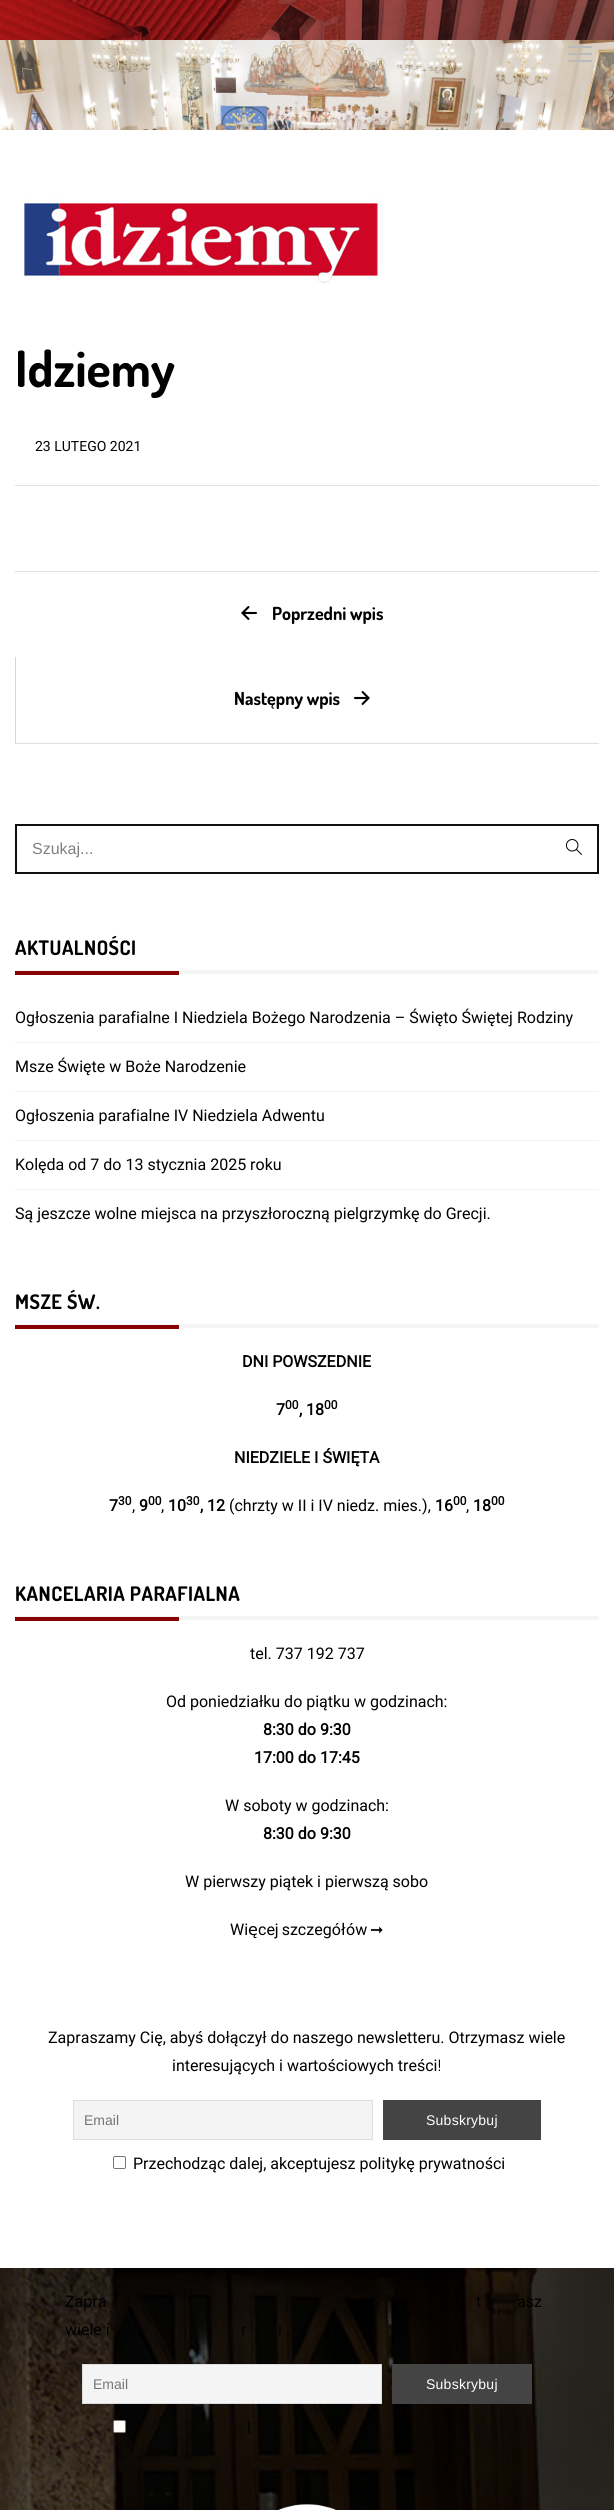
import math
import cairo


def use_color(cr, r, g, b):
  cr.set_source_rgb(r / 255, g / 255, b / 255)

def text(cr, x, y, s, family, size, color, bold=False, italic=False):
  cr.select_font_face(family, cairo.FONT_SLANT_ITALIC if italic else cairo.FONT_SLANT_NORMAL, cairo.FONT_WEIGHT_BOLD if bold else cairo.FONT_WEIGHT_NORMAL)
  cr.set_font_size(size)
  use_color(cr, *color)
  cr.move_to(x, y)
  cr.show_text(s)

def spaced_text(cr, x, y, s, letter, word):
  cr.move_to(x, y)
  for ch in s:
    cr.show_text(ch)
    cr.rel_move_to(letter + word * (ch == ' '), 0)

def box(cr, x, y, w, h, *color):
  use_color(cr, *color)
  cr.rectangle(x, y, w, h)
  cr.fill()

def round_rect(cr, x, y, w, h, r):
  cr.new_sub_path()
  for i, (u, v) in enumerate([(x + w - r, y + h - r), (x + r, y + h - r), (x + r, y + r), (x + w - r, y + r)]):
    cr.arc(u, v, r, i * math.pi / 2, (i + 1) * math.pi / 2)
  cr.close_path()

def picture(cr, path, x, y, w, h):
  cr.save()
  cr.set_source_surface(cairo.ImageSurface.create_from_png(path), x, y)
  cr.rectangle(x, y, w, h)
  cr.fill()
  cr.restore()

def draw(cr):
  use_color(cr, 255, 255, 255)
  cr.paint()
  picture(cr, "img_01.png", 0, 40, 614, 90)
  picture(cr, "img_02.png", 0, 0, 614, 40)
  box(cr, 568, 53, 24, 2, 187, 187, 187)
  box(cr, 568, 46, 24, 2, 187, 187, 187)
  box(cr, 568, 60, 24, 2, 187, 187, 187)
  picture(cr, "img_03.png", 23, 198, 360, 85)
  box(cr, 15, 485, 584, 1, 224, 224, 222)
  box(cr, 15, 571, 584, 1, 224, 224, 222)
  box(cr, 15, 743, 584, 1, 224, 224, 222)
  picture(cr, "img_04.png", 241, 606, 16, 14)
  box(cr, 15, 657, 1, 86, 214, 214, 214)
  picture(cr, "img_05.png", 354, 691, 16, 14)
  cr.rectangle(16, 825, 582, 48)
  use_color(cr, 15, 15, 15)
  cr.stroke()
  picture(cr, "img_06.png", 565, 839, 17, 16)
  box(cr, 15, 970, 584, 4, 245, 245, 245)
  box(cr, 15, 971, 164, 4, 134, 2, 3)
  box(cr, 15, 1042, 584, 1, 244, 243, 240)
  box(cr, 15, 1091, 584, 1, 244, 243, 240)
  box(cr, 15, 1140, 584, 1, 244, 243, 240)
  box(cr, 15, 1189, 584, 1, 244, 243, 240)
  box(cr, 15, 1324, 584, 4, 245, 245, 245)
  box(cr, 15, 1325, 164, 4, 134, 2, 3)
  box(cr, 15, 1616, 584, 4, 245, 245, 245)
  box(cr, 15, 1617, 164, 4, 134, 2, 3)
  use_color(cr, 244, 244, 244)
  cr.rectangle(73.5, 2100.5, 299, 39)
  cr.fill_preserve()
  use_color(cr, 221, 221, 221)
  cr.set_line_width(1)
  cr.stroke()
  box(cr, 383, 2100, 158, 40, 68, 68, 68)
  round_rect(cr, 113.5, 2156.5, 12, 12, 1.5)
  use_color(cr, 118, 118, 118)
  cr.stroke()
  picture(cr, "img_07.png", 0, 2268, 614, 242)
  use_color(cr, 244, 244, 244)
  cr.rectangle(82.5, 2364.5, 299, 39)
  cr.fill_preserve()
  use_color(cr, 221, 221, 221)
  cr.stroke()
  box(cr, 392, 2364, 140, 40, 68, 68, 68)
  use_color(cr, 255, 255, 255)
  round_rect(cr, 113.5, 2420.5, 12, 12, 1.5)
  cr.fill_preserve()
  use_color(cr, 118, 118, 118)
  cr.stroke()
  picture(cr, "img_08.png", 278, 2504, 58, 6)
  text(cr, 15, 387, "Idziemy", "Dosis", 50, (0, 0, 0), bold=True)
  text(cr, 35, 451, "23 LUTEGO 2021", "Roboto", 14, (0, 0, 0))
  text(cr, 272, 620, "Poprzedni wpis", "Dosis", 18, (0, 0, 0), bold=True)
  text(cr, 234, 705, "Następny wpis", "Dosis", 18, (0, 0, 0), bold=True)
  text(cr, 32, 854, "Szukaj...", "Liberation Sans", 16, (128, 128, 128))
  cr.select_font_face("Dosis", cairo.FONT_SLANT_NORMAL, cairo.FONT_WEIGHT_BOLD)
  cr.set_font_size(20)
  use_color(cr, 0, 0, 0)
  spaced_text(cr, 15, 955, "AKTUALNOŚCI", 0.5, 0)
  text(cr, 15, 1023, "Ogłoszenia parafialne I Niedziela Bożego Narodzenia – Święto Świętej Rodziny", "Roboto", 16, (0, 0, 0))
  text(cr, 15, 1072, "Msze Święte w Boże Narodzenie", "Roboto", 16, (0, 0, 0))
  text(cr, 15, 1121, "Ogłoszenia parafialne IV Niedziela Adwentu", "Roboto", 16, (0, 0, 0))
  text(cr, 15, 1170, "Kolęda od 7 do 13 stycznia 2025 roku", "Roboto", 16, (0, 0, 0))
  text(cr, 15, 1219, "Są jeszcze wolne miejsca na przyszłoroczną pielgrzymkę do Grecji.", "Roboto", 16, (0, 0, 0))
  cr.select_font_face("Dosis", cairo.FONT_SLANT_NORMAL, cairo.FONT_WEIGHT_BOLD)
  cr.set_font_size(20)
  spaced_text(cr, 15, 1309, "MSZE ŚW.", 0.5, 0)
  text(cr, 242, 1367, "DNI POWSZEDNIE", "Roboto", 16, (0, 0, 0), bold=True)
  text(cr, 276, 1415, "7", "Roboto", 16, (0, 0, 0), bold=True)
  text(cr, 285, 1409, "00", "Roboto", 12, (0, 0, 0), bold=True)
  text(cr, 299, 1415, ", 18", "Roboto", 16, (0, 0, 0), bold=True)
  text(cr, 324, 1409, "00", "Roboto", 12, (0, 0, 0), bold=True)
  text(cr, 234, 1463, "NIEDZIELE I ŚWIĘTA", "Roboto", 16, (0, 0, 0), bold=True)
  text(cr, 109, 1511, "7", "Roboto", 16, (0, 0, 0), bold=True)
  text(cr, 118, 1505, "30", "Roboto", 12, (0, 0, 0), bold=True)
  text(cr, 132, 1511, ",", "Roboto", 16, (0, 0, 0))
  text(cr, 139, 1511, "9", "Roboto", 16, (0, 0, 0), bold=True)
  text(cr, 148, 1505, "00", "Roboto", 12, (0, 0, 0), bold=True)
  text(cr, 161, 1511, ",", "Roboto", 16, (0, 0, 0))
  text(cr, 168, 1511, "10", "Roboto", 16, (0, 0, 0), bold=True)
  text(cr, 186, 1505, "30", "Roboto", 12, (0, 0, 0), bold=True)
  text(cr, 200, 1511, ", 12", "Roboto", 16, (0, 0, 0), bold=True)
  text(cr, 229, 1511, "(chrzty w II i IV niedz. mies.),", "Roboto", 16, (0, 0, 0))
  text(cr, 435, 1511, "16", "Roboto", 16, (0, 0, 0), bold=True)
  text(cr, 453, 1505, "00", "Roboto", 12, (0, 0, 0), bold=True)
  text(cr, 466, 1511, ",", "Roboto", 16, (0, 0, 0))
  text(cr, 473, 1511, "18", "Roboto", 16, (0, 0, 0), bold=True)
  text(cr, 491, 1505, "00", "Roboto", 12, (0, 0, 0), bold=True)
  cr.select_font_face("Dosis", cairo.FONT_SLANT_NORMAL, cairo.FONT_WEIGHT_BOLD)
  cr.set_font_size(20)
  spaced_text(cr, 15, 1601, "KANCELARIA PARAFIALNA", 0.5, 0)
  text(cr, 250, 1659, "tel. 737 192 737", "Roboto", 16, (0, 0, 0))
  text(cr, 166, 1707, "Od poniedziałku do piątku w godzinach:", "Roboto", 16, (0, 0, 0))
  text(cr, 263, 1735, "8:30 do 9:30", "Roboto", 16, (0, 0, 0), bold=True)
  text(cr, 254, 1763, "17:00 do 17:45", "Roboto", 16, (0, 0, 0), bold=True)
  text(cr, 225, 1811, "W soboty w godzinach:", "Roboto", 16, (0, 0, 0))
  text(cr, 263, 1839, "8:30 do 9:30", "Roboto", 16, (0, 0, 0), bold=True)
  text(cr, 185, 1887, "W pierwszy piątek i pierwszą sobo", "Roboto", 16, (0, 0, 0))
  text(cr, 230, 1935, "Wi", "Roboto", 16, (0, 0, 0))
  text(cr, 248, 1935, "ę", "DejaVu Sans", 16, (0, 0, 0))
  cr.select_font_face("Roboto")
  spaced_text(cr, 258, 1935, "cej szczegó", 0, -1)
  text(cr, 341, 1935, "ł", "DejaVu Sans", 16, (0, 0, 0))
  text(cr, 346, 1935, "ów", "Roboto", 16, (0, 0, 0))
  text(cr, 370, 1935, "➞", "DejaVu Sans", 16, (0, 0, 0))
  text(cr, 48, 2043, "Zapraszamy Cię, abyś dołączył do naszego newsletteru. Otrzymasz wiele", "Roboto", 16, (0, 0, 0))
  text(cr, 172, 2071, "interesujących i wartościowych treści!", "Roboto", 16, (0, 0, 0))
  text(cr, 84, 2125, "Email", "Liberation Sans", 14, (117, 117, 117))
  use_color(cr, 255, 255, 255)
  spaced_text(cr, 426, 2125, "Subskrybuj", 0.25, 0)
  text(cr, 133, 2169, "Przechodząc dalej, akceptujesz politykę prywatności", "Roboto", 16, (0, 0, 0))
  text(cr, 65, 2307, "Zapra", "Roboto", 16, (0, 0, 0))
  text(cr, 476, 2307, "t", "Roboto", 16, (0, 0, 0))
  text(cr, 517, 2307, "asz", "Roboto", 16, (0, 0, 0))
  text(cr, 65, 2335, "wiele i", "Roboto", 16, (0, 0, 0))
  text(cr, 241, 2335, "r", "Roboto", 16, (0, 0, 0))
  text(cr, 278, 2335, "i", "Roboto", 16, (0, 0, 0))
  text(cr, 93, 2389, "Email", "Liberation Sans", 14, (117, 117, 117))
  use_color(cr, 255, 255, 255)
  spaced_text(cr, 426, 2389, "Subskrybuj", 0.25, 0)
  text(cr, 247, 2433, "l", "Roboto", 16, (0, 0, 0))


surface = cairo.ImageSurface(cairo.FORMAT_RGB24, 614, 2510)
cr = cairo.Context(surface)
options = cairo.FontOptions()
options.set_hint_metrics(cairo.HINT_METRICS_OFF)
options.set_hint_style(cairo.HINT_STYLE_NONE)
cr.set_font_options(options)
cr.set_miter_limit(4)
draw(cr)
surface.write_to_png("out.png")
